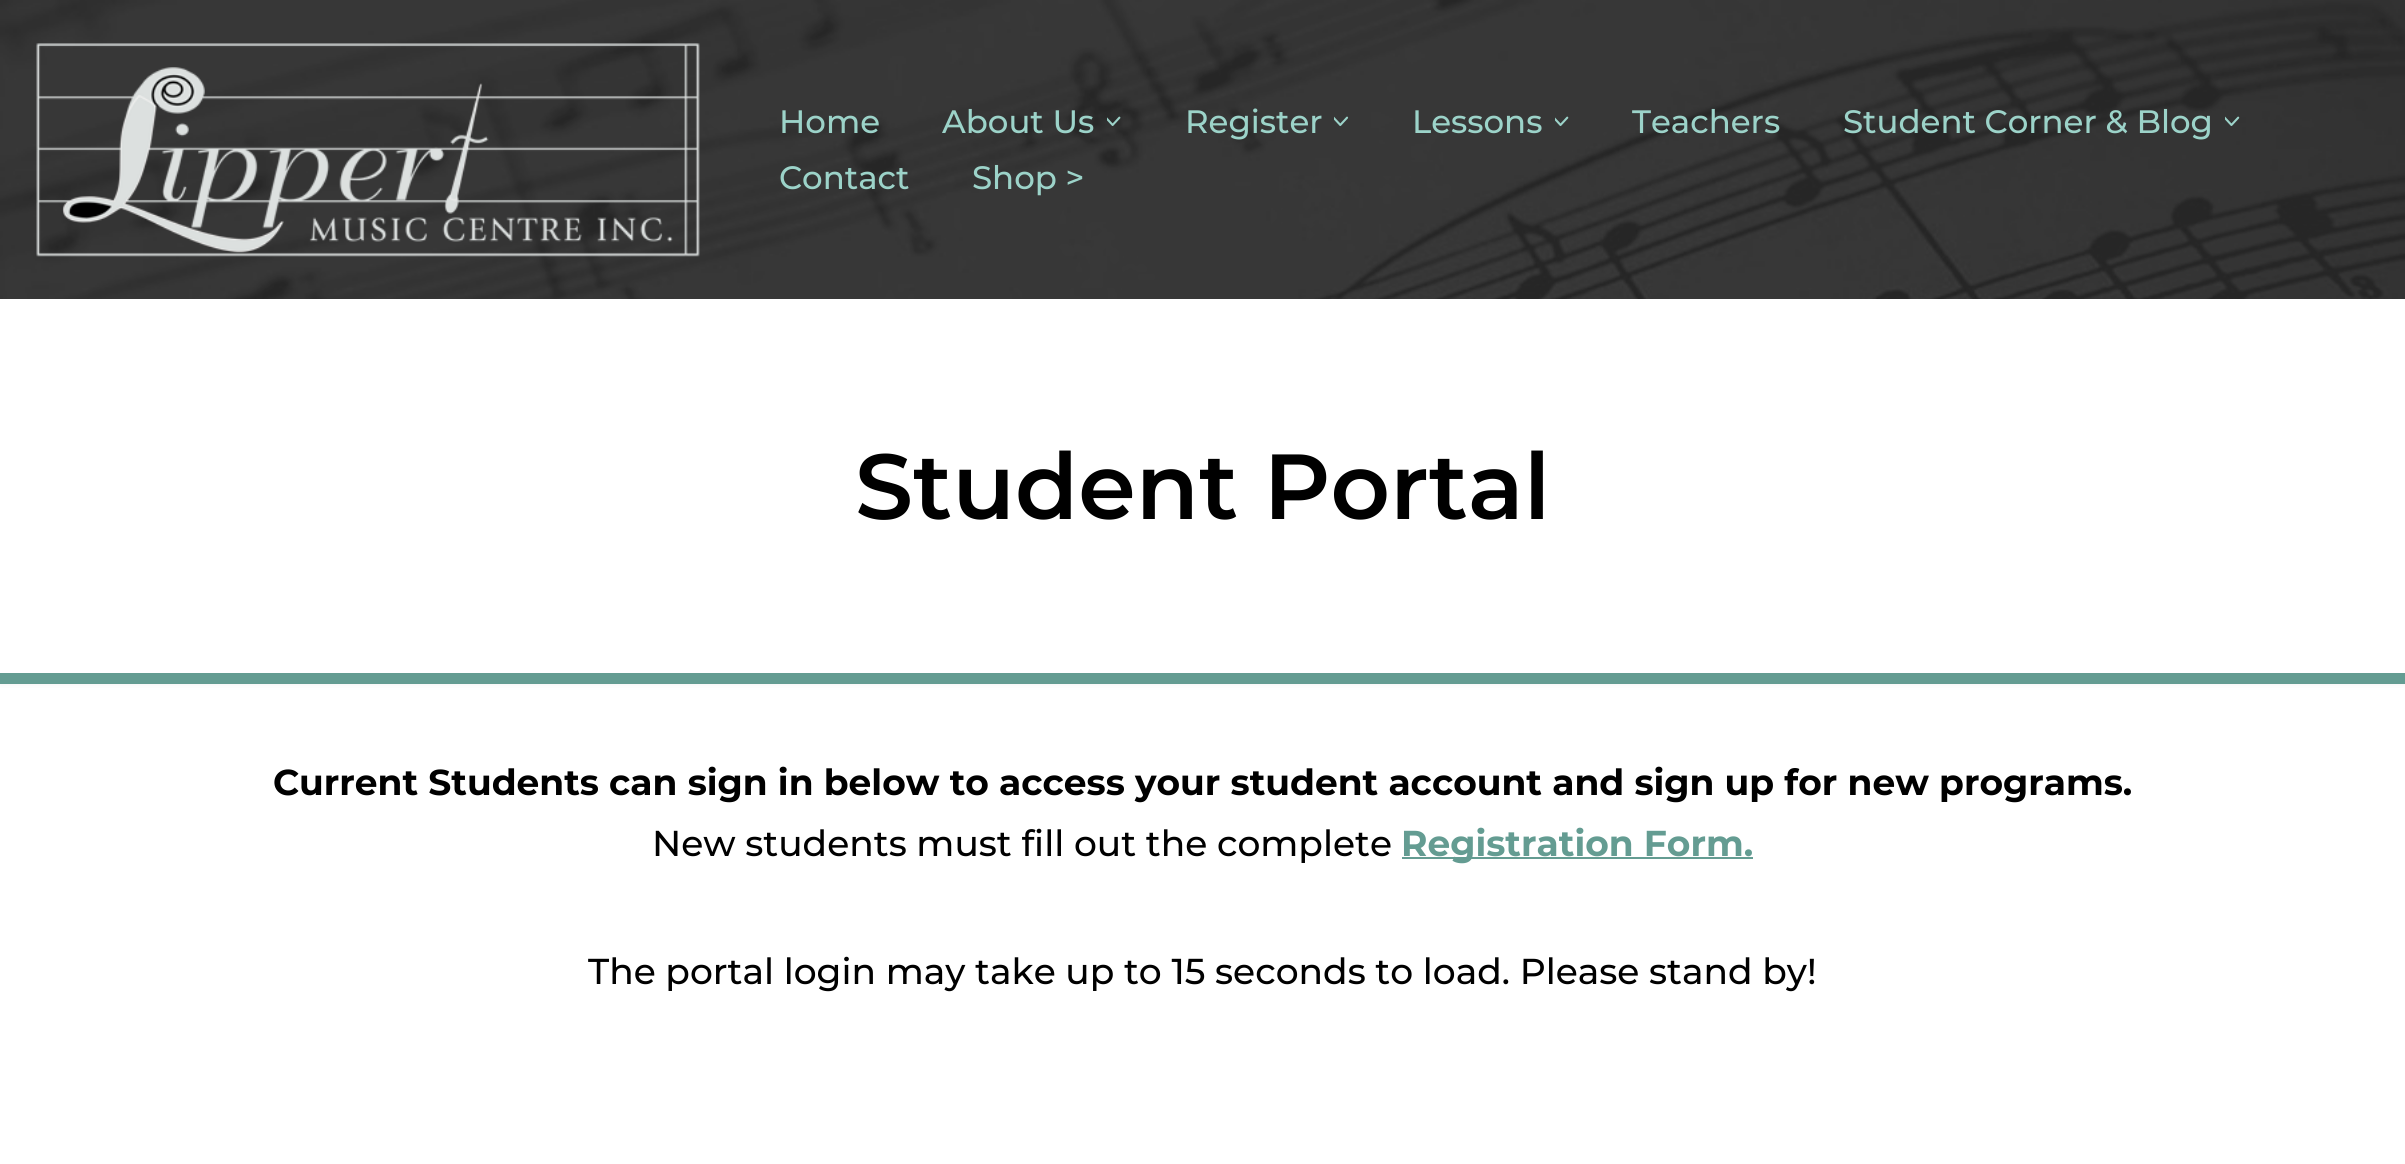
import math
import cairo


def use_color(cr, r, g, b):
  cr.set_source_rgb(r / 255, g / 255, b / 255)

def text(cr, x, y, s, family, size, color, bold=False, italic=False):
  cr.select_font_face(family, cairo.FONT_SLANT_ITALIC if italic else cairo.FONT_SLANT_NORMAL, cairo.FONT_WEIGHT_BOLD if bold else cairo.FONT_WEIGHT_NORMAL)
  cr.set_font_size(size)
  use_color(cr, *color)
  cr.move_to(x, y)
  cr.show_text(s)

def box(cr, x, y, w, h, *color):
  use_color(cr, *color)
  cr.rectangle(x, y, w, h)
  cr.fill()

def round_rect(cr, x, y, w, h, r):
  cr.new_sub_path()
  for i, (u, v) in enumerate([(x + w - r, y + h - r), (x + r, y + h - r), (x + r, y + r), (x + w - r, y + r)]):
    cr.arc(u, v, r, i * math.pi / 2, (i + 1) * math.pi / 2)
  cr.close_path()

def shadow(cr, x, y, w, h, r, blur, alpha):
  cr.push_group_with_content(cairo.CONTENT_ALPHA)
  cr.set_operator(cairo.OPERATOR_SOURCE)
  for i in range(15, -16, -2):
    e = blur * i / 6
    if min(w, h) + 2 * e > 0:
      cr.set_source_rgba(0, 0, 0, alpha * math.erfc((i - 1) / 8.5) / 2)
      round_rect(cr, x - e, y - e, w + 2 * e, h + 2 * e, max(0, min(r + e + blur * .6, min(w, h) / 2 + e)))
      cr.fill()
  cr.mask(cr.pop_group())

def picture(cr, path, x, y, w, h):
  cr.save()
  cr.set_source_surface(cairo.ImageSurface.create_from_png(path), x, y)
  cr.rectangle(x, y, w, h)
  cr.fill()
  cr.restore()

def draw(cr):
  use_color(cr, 255, 255, 255)
  cr.paint()
  use_color(cr, 0, 0, 0)
  shadow(cr, 0, -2, 2405, 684, 0, 3.5, 0.1)
  picture(cr, "img_01.png", 0, 0, 2405, 299)
  picture(cr, "img_02.png", 36, 43, 664, 214)
  picture(cr, "img_03.png", 1107, 116, 14, 10)
  picture(cr, "img_04.png", 1334, 116, 15, 10)
  picture(cr, "img_05.png", 1555, 116, 14, 10)
  picture(cr, "img_06.png", 2225, 116, 15, 10)
  box(cr, 0, 299, 2405, 374, 255, 255, 255)
  box(cr, 0, 673, 2405, 11, 100, 156, 146)
  box(cr, 1402, 857, 351, 2, 100, 156, 146)
  text(cr, 779, 133, "Home", "Montserrat Medium", 32.4, (156, 211, 201))
  text(cr, 942, 133, "About Us", "Montserrat Medium", 32.4, (156, 211, 201))
  text(cr, 1185, 133, "Register", "Montserrat Medium", 32.4, (156, 211, 201))
  text(cr, 1412, 133, "Lessons", "Montserrat Medium", 32.4, (156, 211, 201))
  text(cr, 1632, 133, "Teachers", "Montserrat Medium", 32.4, (156, 211, 201))
  text(cr, 1843, 133, "Student Corner & Blog", "Montserrat Medium", 32.4, (156, 211, 201))
  text(cr, 779, 189, "Contact", "Montserrat Medium", 32.4, (156, 211, 201))
  text(cr, 972, 189, "Shop >", "Montserrat Medium", 32.4, (156, 211, 201))
  text(cr, 855, 519, "Student Portal", "Montserrat SemiBold", 92.25, (0, 0, 0))
  text(cr, 273, 795, "Current Students can sign in below to access your student account and sign up for new programs.", "Montserrat", 36, (0, 0, 0), bold=True)
  text(cr, 652, 856, "New students must fill out the complete", "Montserrat Medium", 36, (0, 0, 0))
  text(cr, 1401, 856, "Registration Form.", "Montserrat", 36, (100, 156, 146), bold=True)
  text(cr, 588, 984, "The portal login may take up to 15 seconds to load. Please stand by!", "Montserrat Medium", 36, (0, 0, 0))


surface = cairo.ImageSurface(cairo.FORMAT_RGB24, 2405, 1164)
cr = cairo.Context(surface)
options = cairo.FontOptions()
options.set_hint_metrics(cairo.HINT_METRICS_OFF)
options.set_hint_style(cairo.HINT_STYLE_NONE)
cr.set_font_options(options)
cr.set_miter_limit(4)
draw(cr)
surface.write_to_png("out.png")
